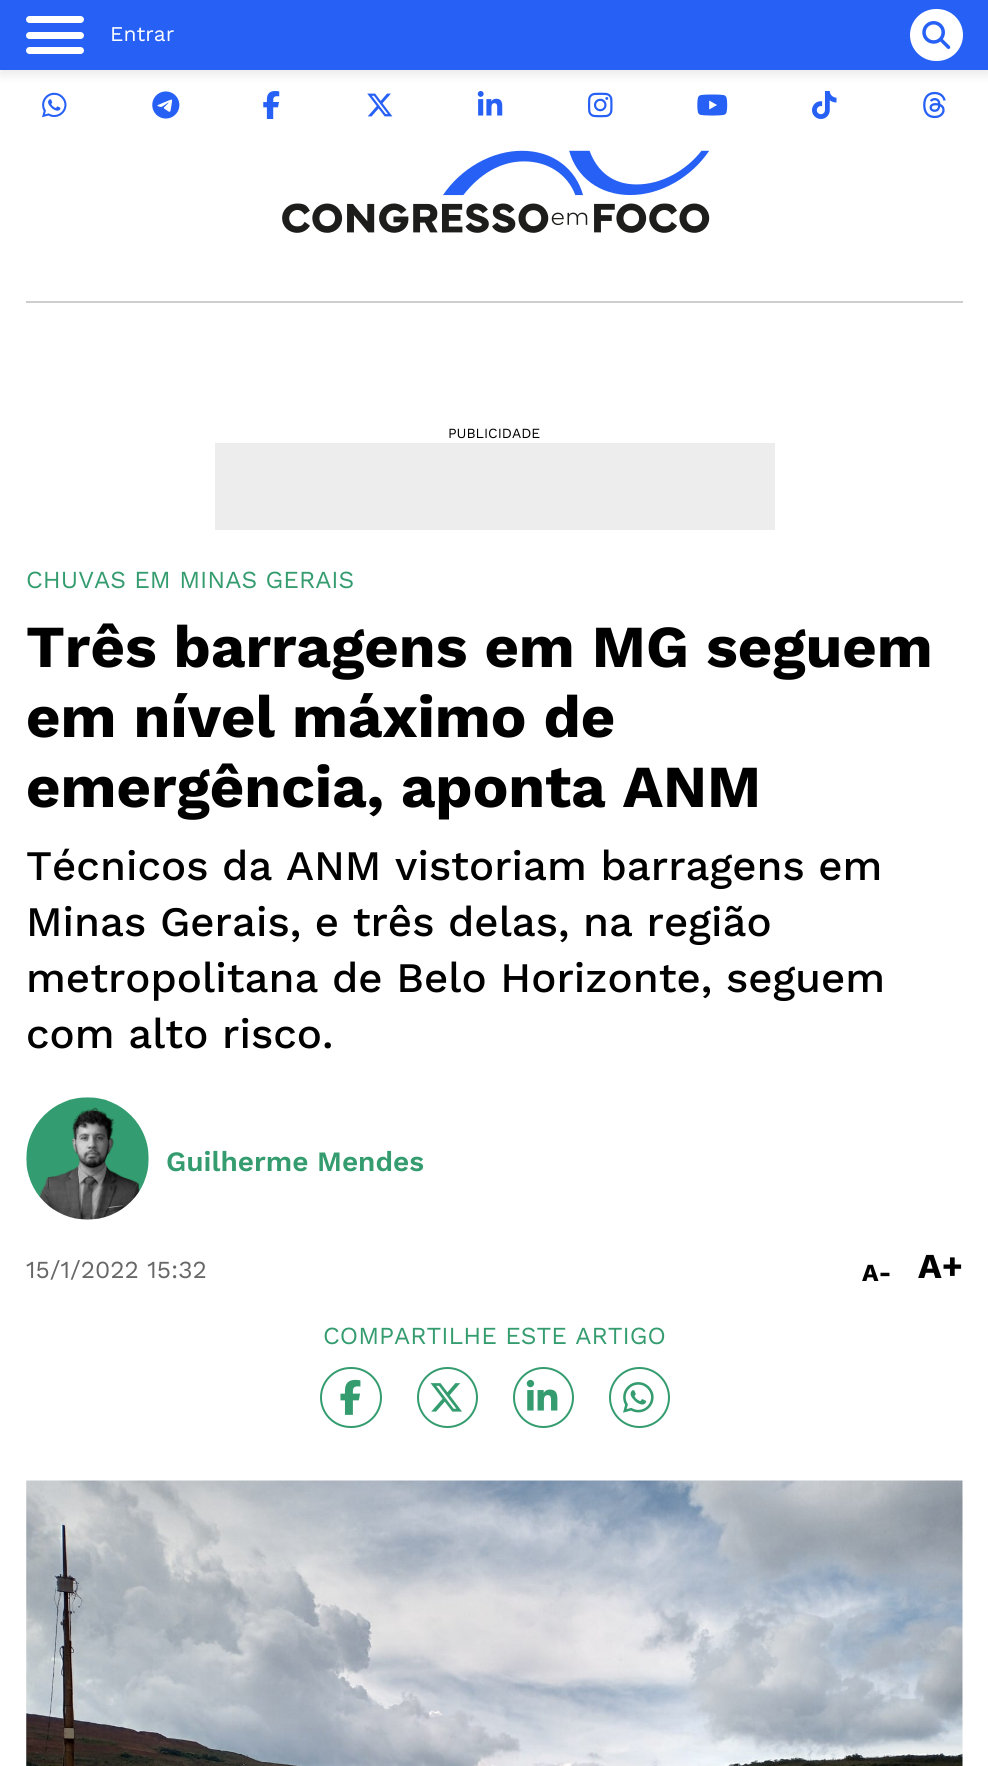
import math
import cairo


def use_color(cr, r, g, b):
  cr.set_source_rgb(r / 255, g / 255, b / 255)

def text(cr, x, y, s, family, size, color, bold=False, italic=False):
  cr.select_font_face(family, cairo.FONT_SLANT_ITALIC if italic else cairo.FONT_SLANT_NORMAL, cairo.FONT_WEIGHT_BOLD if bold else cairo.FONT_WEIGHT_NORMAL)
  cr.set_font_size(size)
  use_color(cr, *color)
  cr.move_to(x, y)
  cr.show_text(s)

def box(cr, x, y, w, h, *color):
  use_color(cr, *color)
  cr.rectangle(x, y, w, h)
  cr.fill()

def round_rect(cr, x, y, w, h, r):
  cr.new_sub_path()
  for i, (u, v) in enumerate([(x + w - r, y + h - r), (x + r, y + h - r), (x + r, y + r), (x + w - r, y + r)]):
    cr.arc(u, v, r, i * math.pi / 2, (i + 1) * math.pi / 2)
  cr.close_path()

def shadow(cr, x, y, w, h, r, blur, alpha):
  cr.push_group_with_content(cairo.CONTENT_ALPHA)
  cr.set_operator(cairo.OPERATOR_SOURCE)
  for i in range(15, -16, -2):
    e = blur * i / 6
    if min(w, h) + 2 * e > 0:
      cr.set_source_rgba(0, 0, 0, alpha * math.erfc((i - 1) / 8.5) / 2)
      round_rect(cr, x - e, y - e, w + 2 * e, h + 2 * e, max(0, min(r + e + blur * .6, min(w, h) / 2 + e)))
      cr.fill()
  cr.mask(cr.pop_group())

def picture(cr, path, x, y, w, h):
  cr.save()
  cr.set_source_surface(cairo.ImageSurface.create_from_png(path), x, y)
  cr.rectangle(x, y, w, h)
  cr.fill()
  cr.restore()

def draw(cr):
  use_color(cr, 255, 255, 255)
  cr.paint()
  use_color(cr, 122, 122, 122)
  shadow(cr, 0, 5, 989, 70, 0, 5, 0.16)
  box(cr, 0, 0, 988, 70, 38, 96, 245)
  use_color(cr, 255, 255, 255)
  round_rect(cr, 26, 16, 58, 7, 3.5)
  cr.fill()
  round_rect(cr, 26, 32, 58, 7, 3.5)
  cr.fill()
  round_rect(cr, 26, 47, 58, 7, 3.5)
  cr.fill()
  round_rect(cr, 910, 9, 53, 52, 26)
  cr.fill()
  picture(cr, "img_01.png", 922, 21, 29, 28)
  picture(cr, "img_02.png", 42, 92, 25, 26)
  picture(cr, "img_03.png", 152, 91, 28, 28)
  picture(cr, "img_04.png", 263, 91, 17, 28)
  picture(cr, "img_05.png", 367, 93, 26, 24)
  picture(cr, "img_06.png", 477, 91, 26, 25)
  picture(cr, "img_07.png", 588, 92, 25, 26)
  picture(cr, "img_08.png", 697, 94, 31, 22)
  picture(cr, "img_09.png", 812, 91, 25, 28)
  picture(cr, "img_10.png", 923, 91, 23, 28)
  picture(cr, "img_11.png", 282, 150, 428, 83)
  box(cr, 26, 301, 937, 2, 206, 206, 206)
  box(cr, 215, 443, 560, 87, 237, 237, 237)
  picture(cr, "img_12.png", 26, 1097, 123, 123)
  round_rect(cr, 321, 1368, 60, 59, 29.5)
  use_color(cr, 52, 156, 111)
  cr.stroke()
  picture(cr, "img_13.png", 340, 1379, 21, 36)
  cr.arc(447.5, 1397.5, 29.5, 0, 2 * math.pi)
  cr.stroke()
  picture(cr, "img_14.png", 430, 1383, 32, 29)
  cr.arc(543.5, 1397.5, 29.5, 0, 2 * math.pi)
  cr.stroke()
  picture(cr, "img_15.png", 526, 1379, 32, 32)
  cr.arc(639.5, 1397.5, 29.5, 0, 2 * math.pi)
  cr.stroke()
  picture(cr, "img_16.png", 623, 1382, 31, 31)
  picture(cr, "img_17.png", 26, 1480, 937, 286)
  text(cr, 110, 41, "Entrar", "Work Sans", 21, (255, 255, 255))
  text(cr, 448, 438, "PUBLICIDADE", "Work Sans", 14, (0, 0, 0))
  text(cr, 26, 588, "CHUVAS EM MINAS GERAIS", "Work Sans", 24.5, (52, 156, 111))
  text(cr, 26, 667, "Três barragens em MG seguem", "Work Sans", 59.5, (0, 0, 0), bold=True)
  text(cr, 26, 737, "em nível máximo de", "Work Sans", 59.5, (0, 0, 0), bold=True)
  text(cr, 26, 807, "emergência, aponta ANM", "Work Sans", 59.5, (0, 0, 0), bold=True)
  text(cr, 26, 880, "Técnicos da ANM vistoriam barragens em", "Work Sans Medium", 42, (0, 0, 0))
  text(cr, 26, 936, "Minas Gerais, e três delas, na região", "Work Sans Medium", 42, (0, 0, 0))
  text(cr, 26, 992, "metropolitana de Belo Horizonte, seguem", "Work Sans Medium", 42, (0, 0, 0))
  text(cr, 26, 1048, "com alto risco.", "Work Sans Medium", 42, (0, 0, 0))
  text(cr, 166, 1171, "Guilherme Mendes", "Work Sans SemiBold", 28, (52, 156, 111))
  text(cr, 26, 1278, "15/1/2022 15:32", "Work Sans", 24.5, (103, 103, 103))
  text(cr, 862, 1281, "A-", "Work Sans", 24.5, (0, 0, 0), bold=True)
  text(cr, 918, 1278, "A+", "Work Sans", 35, (0, 0, 0), bold=True)
  text(cr, 323, 1344, "COMPARTILHE ESTE ARTIGO", "Work Sans", 24.5, (52, 156, 111))


surface = cairo.ImageSurface(cairo.FORMAT_RGB24, 988, 1766)
cr = cairo.Context(surface)
options = cairo.FontOptions()
options.set_hint_metrics(cairo.HINT_METRICS_OFF)
options.set_hint_style(cairo.HINT_STYLE_NONE)
cr.set_font_options(options)
cr.set_miter_limit(4)
draw(cr)
surface.write_to_png("out.png")
